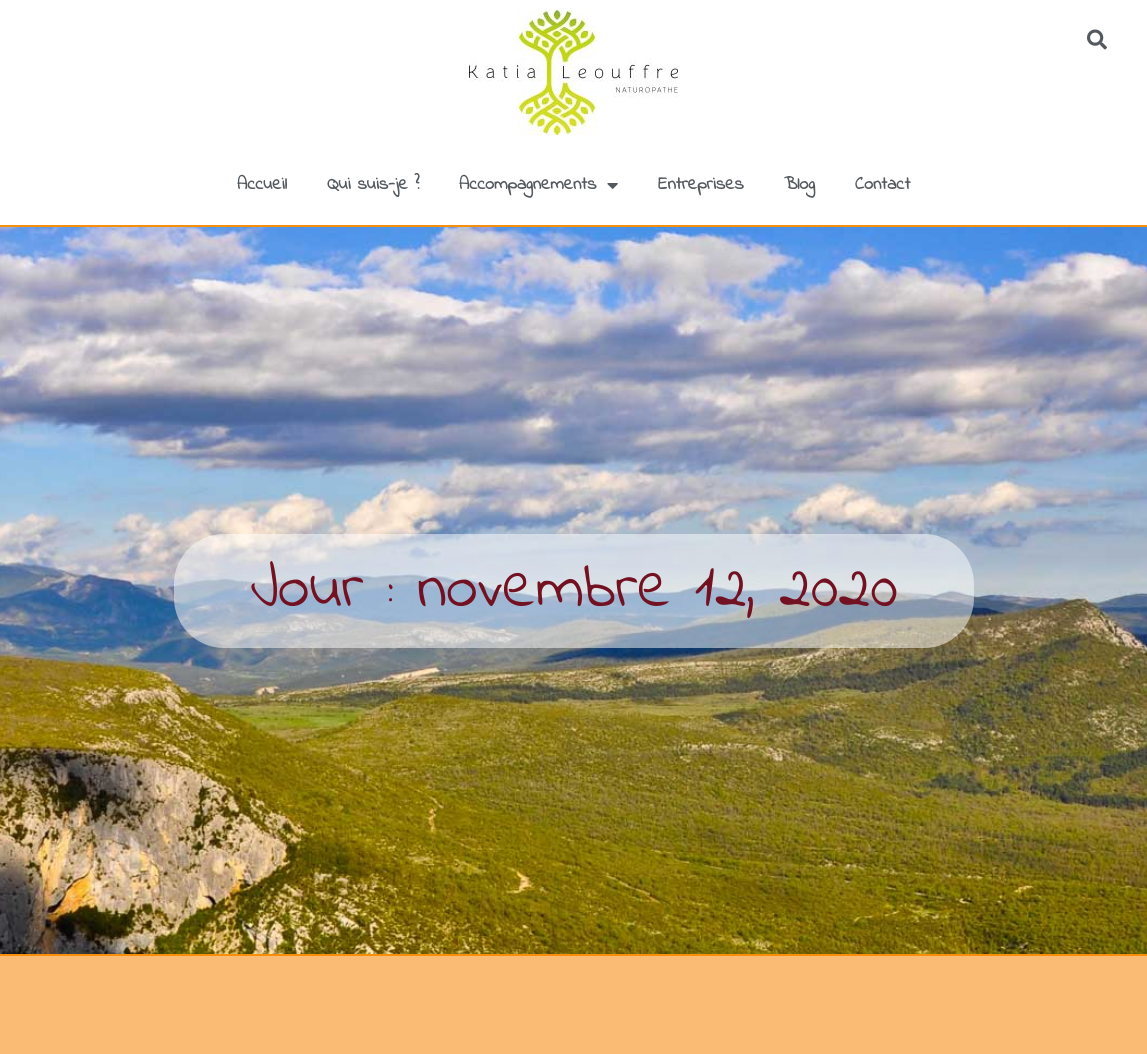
import math
import cairo


def use_color(cr, r, g, b):
  cr.set_source_rgb(r / 255, g / 255, b / 255)

def text(cr, x, y, s, family, size, color, bold=False, italic=False):
  cr.select_font_face(family, cairo.FONT_SLANT_ITALIC if italic else cairo.FONT_SLANT_NORMAL, cairo.FONT_WEIGHT_BOLD if bold else cairo.FONT_WEIGHT_NORMAL)
  cr.set_font_size(size)
  use_color(cr, *color)
  cr.move_to(x, y)
  cr.show_text(s)

def box(cr, x, y, w, h, *color):
  use_color(cr, *color)
  cr.rectangle(x, y, w, h)
  cr.fill()

def round_rect(cr, x, y, w, h, r):
  cr.new_sub_path()
  for i, (u, v) in enumerate([(x + w - r, y + h - r), (x + r, y + h - r), (x + r, y + r), (x + w - r, y + r)]):
    cr.arc(u, v, r, i * math.pi / 2, (i + 1) * math.pi / 2)
  cr.close_path()

def picture(cr, path, x, y, w, h):
  cr.save()
  cr.set_source_surface(cairo.ImageSurface.create_from_png(path), x, y)
  cr.rectangle(x, y, w, h)
  cr.fill()
  cr.restore()

def draw(cr):
  use_color(cr, 255, 255, 255)
  cr.paint()
  picture(cr, "img_01.png", 469, 10, 209, 125)
  picture(cr, "img_02.png", 1087, 29, 20, 21)
  box(cr, 0, 225, 1147, 2, 247, 143, 10)
  picture(cr, "img_03.png", 607, 183, 11, 6)
  box(cr, 0, 954, 1147, 2, 247, 143, 10)
  picture(cr, "img_04.png", 0, 227, 1147, 727)
  cr.set_source_rgba(1, 1, 1, 0.5)
  round_rect(cr, 174, 534, 800, 114, 50)
  cr.fill()
  box(cr, 0, 956, 1147, 98, 250, 187, 116)
  text(cr, 237, 189, "Accueil", "Indie Flower", 18, (84, 89, 95), bold=True)
  text(cr, 327, 189, "Qui suis-je ?", "Indie Flower", 18, (84, 89, 95), bold=True)
  text(cr, 459, 189, "Accompagnements", "Indie Flower", 18, (84, 89, 95), bold=True)
  text(cr, 658, 189, "Entreprises", "Indie Flower", 18, (84, 89, 95), bold=True)
  text(cr, 784, 189, "Blog", "Indie Flower", 18, (84, 89, 95), bold=True)
  text(cr, 855, 189, "Contact", "Indie Flower", 18, (84, 89, 95), bold=True)
  text(cr, 250, 606, "Jour : novembre 12, 2020", "Indie Flower", 64, (114, 17, 33))


surface = cairo.ImageSurface(cairo.FORMAT_RGB24, 1147, 1054)
cr = cairo.Context(surface)
options = cairo.FontOptions()
options.set_hint_metrics(cairo.HINT_METRICS_OFF)
options.set_hint_style(cairo.HINT_STYLE_NONE)
cr.set_font_options(options)
cr.set_miter_limit(4)
draw(cr)
surface.write_to_png("out.png")
